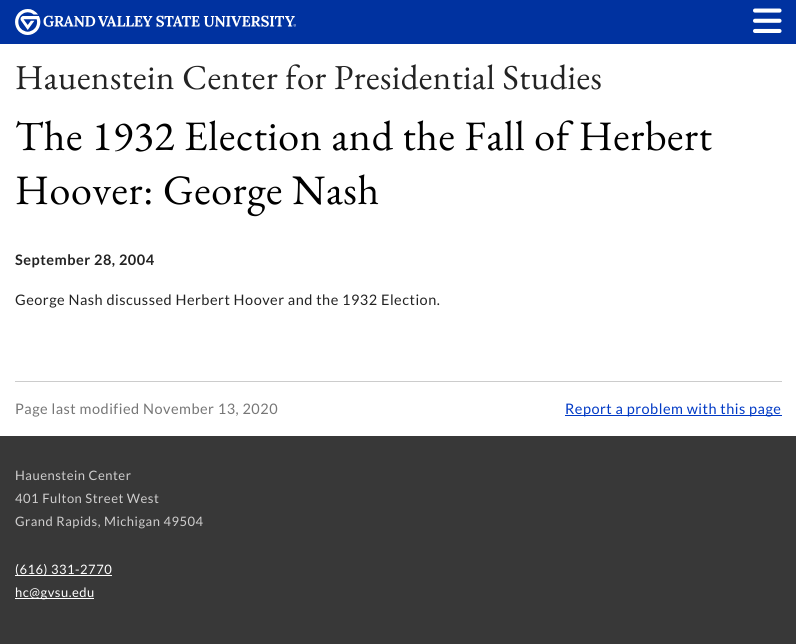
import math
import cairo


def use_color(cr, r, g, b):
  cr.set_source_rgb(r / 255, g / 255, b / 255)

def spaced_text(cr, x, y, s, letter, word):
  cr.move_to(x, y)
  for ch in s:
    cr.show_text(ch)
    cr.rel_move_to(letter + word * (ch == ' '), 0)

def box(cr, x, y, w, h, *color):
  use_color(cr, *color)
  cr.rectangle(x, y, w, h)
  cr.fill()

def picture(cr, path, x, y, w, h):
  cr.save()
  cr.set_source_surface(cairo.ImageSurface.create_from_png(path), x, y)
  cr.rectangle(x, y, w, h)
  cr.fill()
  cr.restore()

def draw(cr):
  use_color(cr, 255, 255, 255)
  cr.paint()
  box(cr, 0, 0, 796, 44, 0, 50, 160)
  picture(cr, "img_01.png", 15, 9, 281, 26)
  picture(cr, "img_02.png", 753, 8, 29, 25)
  box(cr, 15, 381, 767, 1, 204, 204, 204)
  box(cr, 565, 415, 217, 1, 0, 57, 197)
  box(cr, 0, 436, 796, 208, 56, 56, 56)
  box(cr, 15, 575, 97, 1, 255, 255, 255)
  box(cr, 15, 598, 79, 1, 255, 255, 255)
  cr.select_font_face("EB Garamond")
  cr.set_font_size(35)
  use_color(cr, 35, 35, 35)
  spaced_text(cr, 15, 89, "Hauenstein Center for Presidential Studies", 0.4, 0)
  cr.set_font_size(42)
  use_color(cr, 0, 0, 0)
  spaced_text(cr, 15, 150, "The 1932 Election and the Fall of Herbert", 0.6, 0)
  spaced_text(cr, 15, 204, "Hoover: George Nash", 0.6, 0)
  cr.select_font_face("Lato", cairo.FONT_SLANT_NORMAL, cairo.FONT_WEIGHT_BOLD)
  cr.set_font_size(14.5)
  use_color(cr, 35, 35, 35)
  spaced_text(cr, 15, 265, "September 28, 2004", 0.5, 0)
  cr.select_font_face("Lato")
  spaced_text(cr, 15, 305, "George Nash discussed Herbert Hoover and the 1932 Election.", 0.5, 0)
  use_color(cr, 118, 118, 118)
  spaced_text(cr, 15, 414, "Page last modified November 13, 2020", 0.5, 0)
  use_color(cr, 0, 57, 197)
  spaced_text(cr, 565, 414, "Report a problem with this page", 0.5, 0)
  cr.set_font_size(13)
  use_color(cr, 206, 205, 205)
  spaced_text(cr, 15, 480, "Hauenstein Center", 0.5, 0)
  spaced_text(cr, 15, 503, "401 Fulton Street West", 0.5, 0)
  spaced_text(cr, 15, 526, "Grand Rapids, Michigan 49504", 0.5, 0)
  use_color(cr, 255, 255, 255)
  spaced_text(cr, 15, 574, "(616) 331-2770", 0.5, 0)
  spaced_text(cr, 15, 597, "hc@gvsu.edu", 0.5, 0)


surface = cairo.ImageSurface(cairo.FORMAT_RGB24, 796, 644)
cr = cairo.Context(surface)
options = cairo.FontOptions()
options.set_hint_metrics(cairo.HINT_METRICS_OFF)
options.set_hint_style(cairo.HINT_STYLE_NONE)
cr.set_font_options(options)
cr.set_miter_limit(4)
draw(cr)
surface.write_to_png("out.png")
